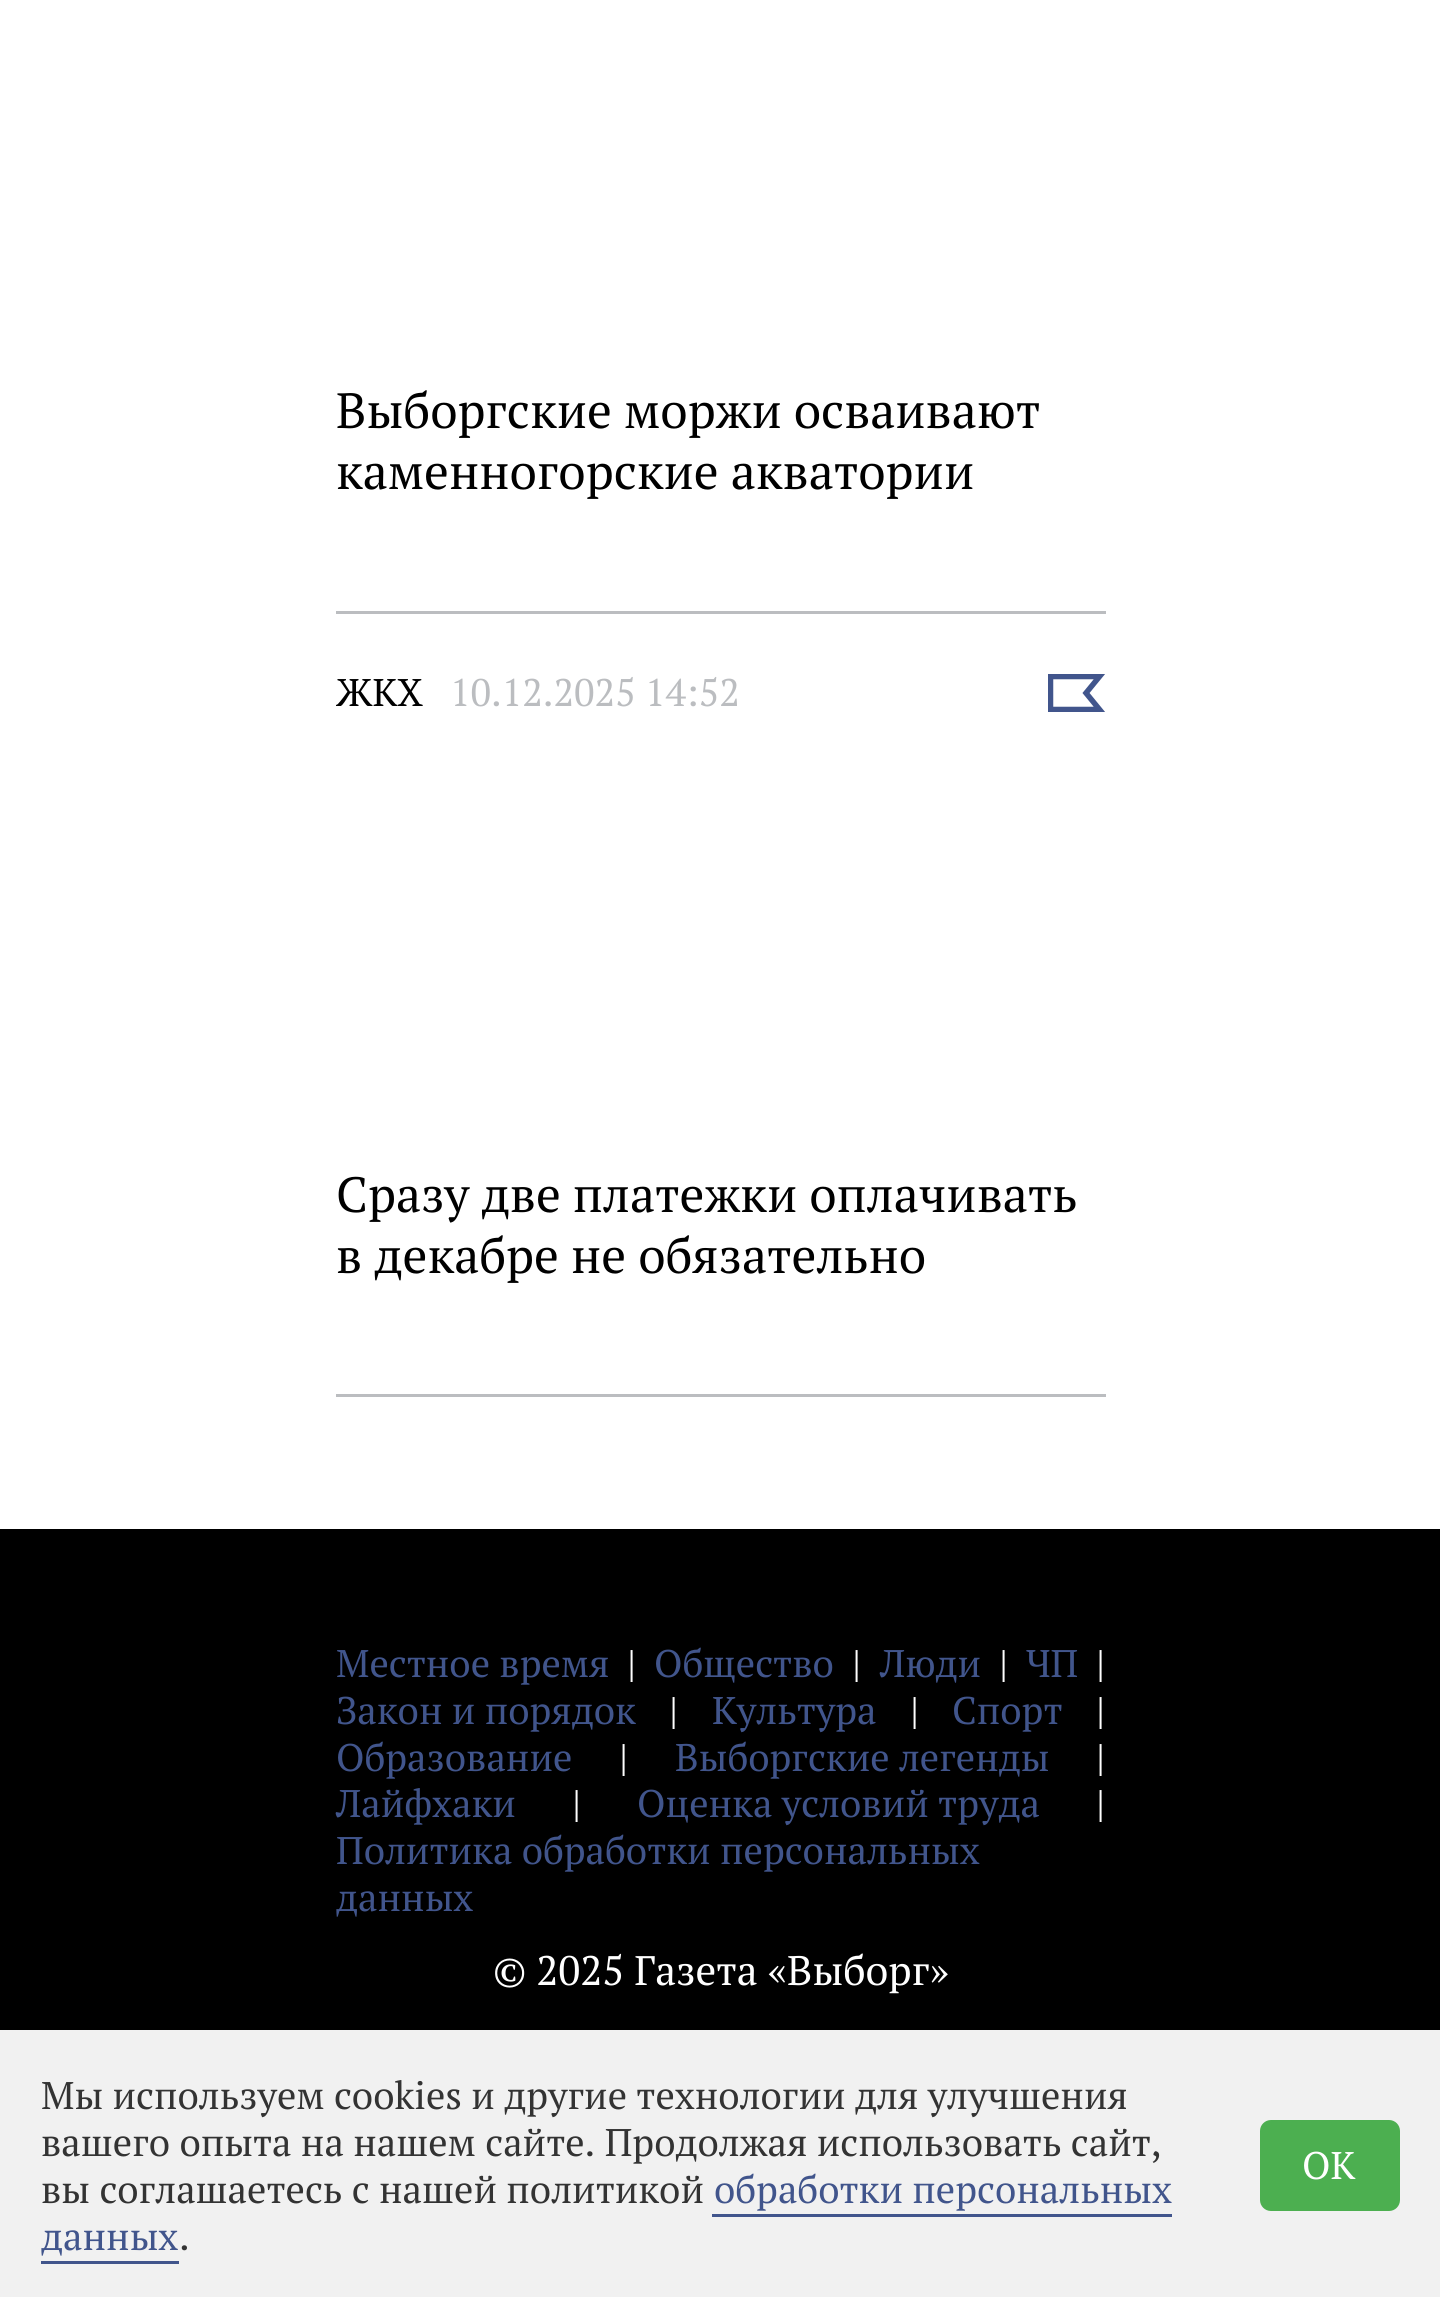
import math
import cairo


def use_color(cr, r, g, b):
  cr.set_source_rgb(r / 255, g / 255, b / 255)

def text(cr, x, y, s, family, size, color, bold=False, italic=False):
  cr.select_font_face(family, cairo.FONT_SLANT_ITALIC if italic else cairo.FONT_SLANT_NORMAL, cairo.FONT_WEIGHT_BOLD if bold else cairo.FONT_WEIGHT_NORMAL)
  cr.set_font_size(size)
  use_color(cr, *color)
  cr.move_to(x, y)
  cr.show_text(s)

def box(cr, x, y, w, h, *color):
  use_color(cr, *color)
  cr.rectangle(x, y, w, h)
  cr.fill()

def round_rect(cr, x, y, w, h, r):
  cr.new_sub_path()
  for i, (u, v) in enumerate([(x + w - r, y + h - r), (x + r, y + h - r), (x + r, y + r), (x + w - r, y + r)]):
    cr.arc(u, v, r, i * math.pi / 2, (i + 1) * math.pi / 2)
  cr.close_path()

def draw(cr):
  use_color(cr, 255, 255, 255)
  cr.paint()
  box(cr, 336, 611, 770, 3, 187, 189, 192)
  box(cr, 336, 1394, 770, 3, 187, 189, 192)
  cr.save()
  cr.rectangle(1048, 674, 58, 38)
  cr.clip()
  cr.new_path()
  cr.move_to(1099.5, 709.5)
  cr.line_to(1050.5, 709.5)
  cr.line_to(1050.5, 676.5)
  cr.line_to(1099.5, 676.5)
  cr.line_to(1086, 693)
  cr.close_path()
  use_color(cr, 65, 85, 140)
  cr.set_line_width(5.5)
  cr.stroke()
  cr.restore()
  box(cr, 0, 1529, 1440, 501, 0, 0, 0)
  box(cr, 0, 2030, 1440, 267, 241, 241, 241)
  box(cr, 712, 2214, 460, 3, 65, 85, 140)
  box(cr, 41, 2261, 138, 3, 65, 85, 140)
  use_color(cr, 76, 175, 80)
  round_rect(cr, 1260, 2120, 140, 91, 11)
  cr.fill()
  text(cr, 336, 428, "Выборгские моржи осваивают", "PT Serif", 49.5, (0, 0, 0))
  text(cr, 336, 489, "каменногорские акватории", "PT Serif", 49.5, (0, 0, 0))
  text(cr, 336, 706, "ЖКХ", "PT Serif", 38.5, (0, 0, 0))
  text(cr, 450, 706, "10.12.2025 14:52", "PT Serif", 38.5, (187, 189, 192))
  text(cr, 336, 1212, "Сразу две платежки оплачивать", "PT Serif", 49.5, (0, 0, 0))
  text(cr, 336, 1273, "в декабре не обязательно", "PT Serif", 49.5, (0, 0, 0))
  text(cr, 336, 1677, "Местное время", "PT Serif", 38.5, (65, 85, 140))
  text(cr, 627, 1677, "|", "PT Serif", 38.5, (255, 255, 255))
  text(cr, 654, 1677, "Общество", "PT Serif", 38.5, (65, 85, 140))
  text(cr, 852, 1677, "|", "PT Serif", 38.5, (255, 255, 255))
  text(cr, 880, 1677, "Люди", "PT Serif", 38.5, (65, 85, 140))
  text(cr, 999, 1677, "|", "PT Serif", 38.5, (255, 255, 255))
  text(cr, 1026, 1677, "ЧП", "PT Serif", 38.5, (65, 85, 140))
  text(cr, 1096, 1677, "|", "PT Serif", 38.5, (255, 255, 255))
  text(cr, 336, 1724, "Закон и порядок", "PT Serif", 38.5, (65, 85, 140))
  text(cr, 669, 1724, "|", "PT Serif", 38.5, (255, 255, 255))
  text(cr, 712, 1724, "Культура", "PT Serif", 38.5, (65, 85, 140))
  text(cr, 910, 1724, "|", "PT Serif", 38.5, (255, 255, 255))
  text(cr, 952, 1724, "Спорт", "PT Serif", 38.5, (65, 85, 140))
  text(cr, 1096, 1724, "|", "PT Serif", 38.5, (255, 255, 255))
  text(cr, 336, 1771, "Образование", "PT Serif", 38.5, (65, 85, 140))
  text(cr, 619, 1771, "|", "PT Serif", 38.5, (255, 255, 255))
  text(cr, 675, 1771, "Выборгские легенды", "PT Serif", 38.5, (65, 85, 140))
  text(cr, 1096, 1771, "|", "PT Serif", 38.5, (255, 255, 255))
  text(cr, 336, 1817, "Лайфхаки", "PT Serif", 38.5, (65, 85, 140))
  text(cr, 572, 1817, "|", "PT Serif", 38.5, (255, 255, 255))
  text(cr, 637, 1817, "Оценка условий труда", "PT Serif", 38.5, (65, 85, 140))
  text(cr, 1096, 1817, "|", "PT Serif", 38.5, (255, 255, 255))
  text(cr, 336, 1864, "Политика обработки персональных", "PT Serif", 38.5, (65, 85, 140))
  text(cr, 336, 1911, "данных", "PT Serif", 38.5, (65, 85, 140))
  text(cr, 493, 1985, "© 2025 Газета «Выборг»", "PT Serif", 41.25, (255, 255, 255))
  text(cr, 41, 2109, "Мы используем cookies и другие технологии для улучшения", "PT Serif", 38.5, (51, 51, 51))
  text(cr, 41, 2156, "вашего опыта на нашем сайте. Продолжая использовать сайт,", "PT Serif", 38.5, (51, 51, 51))
  text(cr, 41, 2203, "вы соглашаетесь с нашей политикой", "PT Serif", 38.5, (51, 51, 51))
  text(cr, 714, 2203, "обработки персональных", "PT Serif", 38.5, (65, 85, 140))
  text(cr, 41, 2250, "данных", "PT Serif", 38.5, (65, 85, 140))
  text(cr, 179, 2250, ".", "PT Serif", 38.5, (51, 51, 51))
  text(cr, 1302, 2179, "OK", "PT Serif", 38.5, (255, 255, 255))


surface = cairo.ImageSurface(cairo.FORMAT_RGB24, 1440, 2297)
cr = cairo.Context(surface)
options = cairo.FontOptions()
options.set_hint_metrics(cairo.HINT_METRICS_OFF)
options.set_hint_style(cairo.HINT_STYLE_NONE)
cr.set_font_options(options)
cr.set_miter_limit(4)
draw(cr)
surface.write_to_png("out.png")
